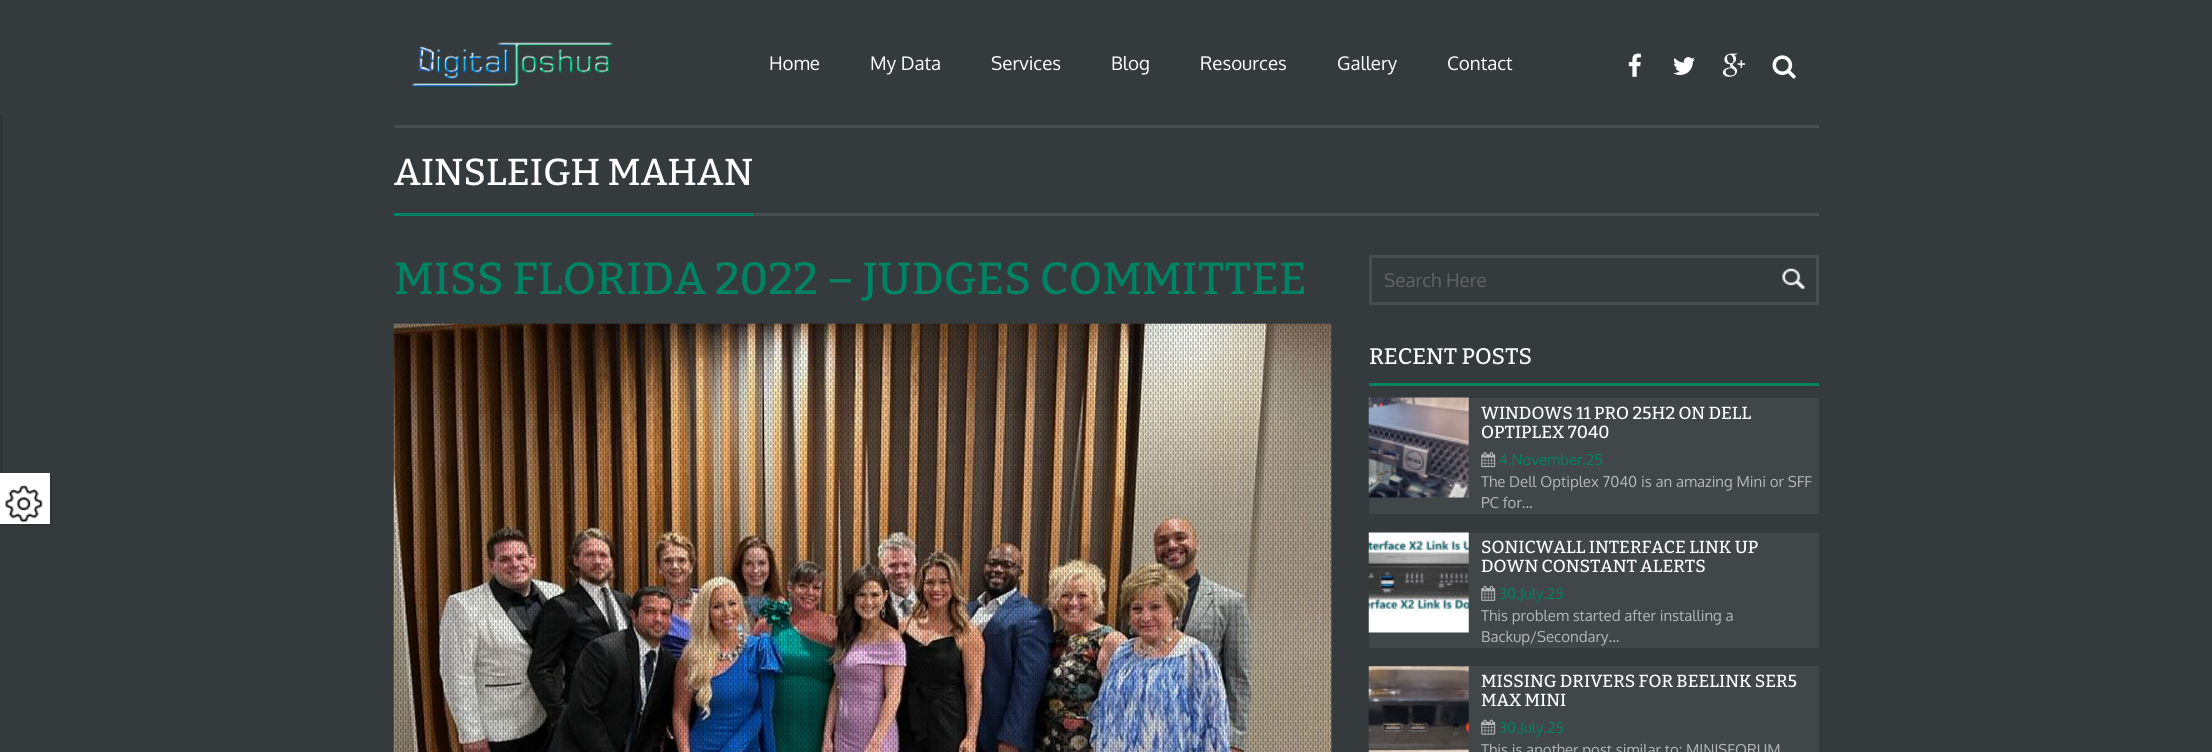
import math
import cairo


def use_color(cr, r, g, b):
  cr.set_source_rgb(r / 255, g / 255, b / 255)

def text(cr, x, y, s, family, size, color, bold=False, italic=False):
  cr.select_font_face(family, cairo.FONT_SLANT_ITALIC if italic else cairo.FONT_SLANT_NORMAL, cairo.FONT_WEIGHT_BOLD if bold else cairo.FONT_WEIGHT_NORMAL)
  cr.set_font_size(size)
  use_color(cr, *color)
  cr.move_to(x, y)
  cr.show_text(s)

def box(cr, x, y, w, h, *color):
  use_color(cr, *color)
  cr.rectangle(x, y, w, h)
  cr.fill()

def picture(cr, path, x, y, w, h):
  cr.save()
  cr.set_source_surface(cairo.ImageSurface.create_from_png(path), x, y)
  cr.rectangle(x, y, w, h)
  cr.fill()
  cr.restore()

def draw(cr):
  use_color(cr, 53, 58, 61)
  cr.paint()
  picture(cr, "img_01.png", 412, 42, 201, 45)
  picture(cr, "img_02.png", 1628, 53, 13, 24)
  picture(cr, "img_03.png", 1673, 57, 22, 18)
  picture(cr, "img_04.png", 1722, 53, 23, 24)
  picture(cr, "img_05.png", 1772, 55, 24, 24)
  box(cr, 394, 125, 1425, 3, 73, 78, 80)
  use_color(cr, 49, 53, 56)
  cr.new_path()
  cr.move_to(-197, 524)
  cr.line_to(-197, 526)
  cr.line_to(3, 526)
  cr.line_to(3, 115)
  cr.line_to(0, 115)
  cr.line_to(0, 524)
  cr.close_path()
  cr.fill()
  cr.new_path()
  cr.move_to(3, 524)
  cr.line_to(3, 526)
  cr.line_to(53, 526)
  cr.line_to(53, 475)
  cr.line_to(50, 475)
  cr.line_to(50, 524)
  cr.close_path()
  cr.fill()
  box(cr, 0, 473, 50, 51, 255, 255, 255)
  picture(cr, "img_06.png", 4, 485, 39, 38)
  box(cr, 394, 213, 359, 3, 0, 131, 99)
  box(cr, 753, 213, 1066, 3, 73, 78, 80)
  picture(cr, "img_07.png", 393, 323, 939, 429)
  picture(cr, "img_08.png", 393, 323, 938, 429)
  cr.rectangle(1370.5, 256.5, 447, 47)
  cr.set_line_width(3)
  cr.stroke()
  picture(cr, "img_09.png", 1782, 268, 23, 21)
  box(cr, 1369, 383, 450, 3, 0, 131, 99)
  box(cr, 1369, 398, 450, 116, 65, 70, 73)
  picture(cr, "img_10.png", 1368, 397, 101, 101)
  picture(cr, "img_11.png", 1481, 452, 15, 16)
  box(cr, 1369, 533, 450, 115, 65, 70, 73)
  picture(cr, "img_12.png", 1368, 532, 101, 101)
  picture(cr, "img_13.png", 1481, 585, 15, 16)
  box(cr, 1369, 666, 450, 86, 65, 70, 73)
  picture(cr, "img_14.png", 1368, 666, 101, 86)
  picture(cr, "img_15.png", 1481, 719, 15, 16)
  text(cr, 769, 70, "Home", "Oxygen", 18.75, (255, 255, 255))
  text(cr, 870, 70, "My Data", "Oxygen", 18.75, (255, 255, 255))
  text(cr, 991, 70, "Services", "Oxygen", 18.75, (255, 255, 255))
  text(cr, 1111, 70, "Blog", "Oxygen", 18.75, (255, 255, 255))
  text(cr, 1200, 70, "Resources", "Oxygen", 18.75, (255, 255, 255))
  text(cr, 1337, 70, "Gallery", "Oxygen", 18.75, (255, 255, 255))
  text(cr, 1447, 70, "Contact", "Oxygen", 18.75, (255, 255, 255))
  text(cr, 394, 185, "AINSLEIGH MAHAN", "Bitter Medium", 37.5, (255, 255, 255))
  text(cr, 394, 294, "MISS FLORIDA 2022 – JUDGES COMMITTEE", "Bitter Medium", 45, (0, 131, 99))
  text(cr, 1384, 287, "Search Here", "Oxygen", 18.75, (99, 99, 99))
  text(cr, 1369, 364, "RECENT POSTS", "Bitter Medium", 22.5, (255, 255, 255))
  text(cr, 1481, 419, "WINDOWS 11 PRO 25H2 ON DELL", "Bitter Medium", 17.5, (255, 255, 255))
  text(cr, 1481, 438, "OPTIPLEX 7040", "Bitter Medium", 17.5, (255, 255, 255))
  text(cr, 1499, 465, "4.November.25", "Oxygen", 15, (0, 131, 99))
  text(cr, 1481, 487, "The Dell Optiplex 7040 is an amazing Mini or SFF", "Oxygen", 15, (183, 183, 183))
  text(cr, 1481, 508, "PC for...", "Oxygen", 15, (183, 183, 183))
  text(cr, 1481, 553, "SONICWALL INTERFACE LINK UP", "Bitter Medium", 17.5, (255, 255, 255))
  text(cr, 1481, 572, "DOWN CONSTANT ALERTS", "Bitter Medium", 17.5, (255, 255, 255))
  text(cr, 1499, 599, "30.July.25", "Oxygen", 15, (0, 131, 99))
  text(cr, 1481, 621, "This problem started after installing a", "Oxygen", 15, (183, 183, 183))
  text(cr, 1481, 642, "Backup/Secondary...", "Oxygen", 15, (183, 183, 183))
  text(cr, 1481, 687, "MISSING DRIVERS FOR BEELINK SER5", "Bitter Medium", 17.5, (255, 255, 255))
  text(cr, 1481, 706, "MAX MINI", "Bitter Medium", 17.5, (255, 255, 255))
  text(cr, 1499, 733, "30.July.25", "Oxygen", 15, (0, 131, 99))
  text(cr, 1481, 755, "This is another post similar to: MINISFORUM", "Oxygen", 15, (183, 183, 183))


surface = cairo.ImageSurface(cairo.FORMAT_RGB24, 2212, 752)
cr = cairo.Context(surface)
options = cairo.FontOptions()
options.set_hint_metrics(cairo.HINT_METRICS_OFF)
options.set_hint_style(cairo.HINT_STYLE_NONE)
cr.set_font_options(options)
cr.set_miter_limit(4)
draw(cr)
surface.write_to_png("out.png")
